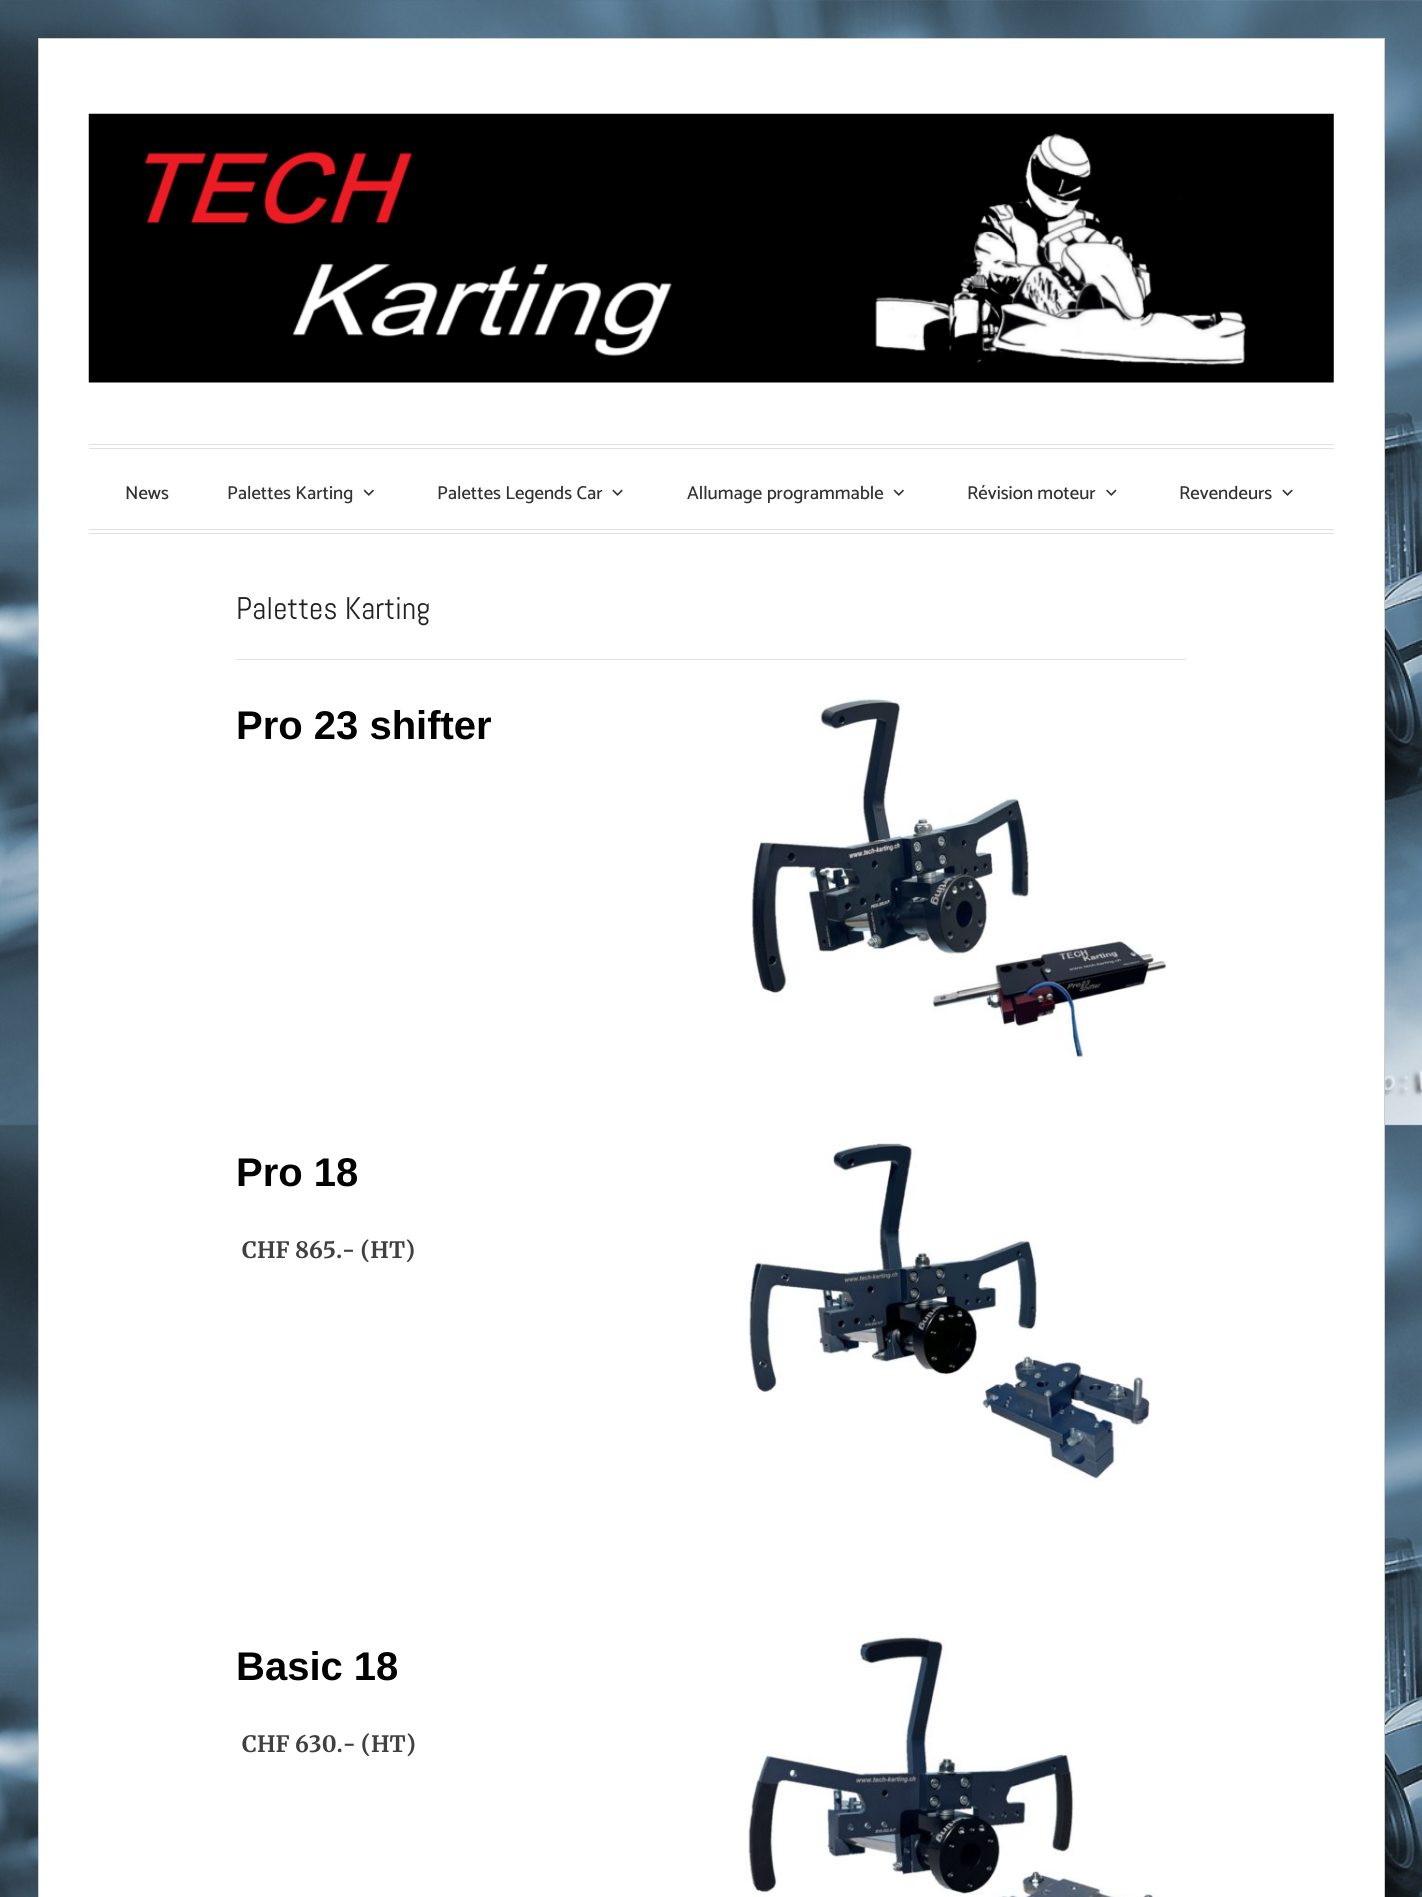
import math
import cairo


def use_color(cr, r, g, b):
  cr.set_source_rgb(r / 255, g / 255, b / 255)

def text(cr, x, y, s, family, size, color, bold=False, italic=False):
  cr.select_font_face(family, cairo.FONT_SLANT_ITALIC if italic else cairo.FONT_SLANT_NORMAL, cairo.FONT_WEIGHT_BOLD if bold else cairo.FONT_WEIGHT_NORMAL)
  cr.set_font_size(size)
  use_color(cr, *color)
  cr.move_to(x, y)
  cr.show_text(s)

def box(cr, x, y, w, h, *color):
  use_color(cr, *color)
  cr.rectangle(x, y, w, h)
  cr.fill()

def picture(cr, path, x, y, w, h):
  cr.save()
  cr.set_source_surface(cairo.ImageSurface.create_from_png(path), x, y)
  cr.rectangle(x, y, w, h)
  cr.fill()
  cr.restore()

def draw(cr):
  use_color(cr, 255, 255, 255)
  cr.paint()
  picture(cr, "img_01.png", 0, 0, 1422, 1897)
  use_color(cr, 255, 255, 255)
  cr.rectangle(38.5, 38.5, 1346, 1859)
  cr.fill_preserve()
  use_color(cr, 204, 204, 204)
  cr.set_line_width(1)
  cr.stroke()
  picture(cr, "img_02.png", 88, 113, 1246, 270)
  box(cr, 89, 444, 1245, 1, 225, 225, 225)
  box(cr, 89, 448, 1245, 1, 225, 225, 225)
  box(cr, 89, 529, 1245, 1, 225, 225, 225)
  box(cr, 89, 533, 1245, 1, 225, 225, 225)
  picture(cr, "img_03.png", 363, 489, 11, 7)
  picture(cr, "img_04.png", 612, 489, 11, 7)
  picture(cr, "img_03.png", 893, 489, 11, 7)
  picture(cr, "img_05.png", 1106, 489, 11, 7)
  picture(cr, "img_04.png", 1282, 489, 11, 7)
  box(cr, 236, 659, 950, 1, 225, 225, 225)
  picture(cr, "img_06.png", 751, 695, 416, 364)
  picture(cr, "img_07.png", 745, 1137, 406, 345)
  picture(cr, "img_08.png", 745, 1632, 410, 265)
  text(cr, 125, 499, "News", "Catamaran Thin", 18.75, (51, 51, 51))
  text(cr, 227, 499, "Palettes Karting", "Catamaran Thin", 18.75, (51, 51, 51))
  text(cr, 437, 499, "Palettes Legends Car", "Catamaran Thin", 18.75, (51, 51, 51))
  text(cr, 687, 499, "Allumage programmable", "Catamaran Thin", 18.75, (51, 51, 51))
  text(cr, 967, 499, "Révision moteur", "Catamaran Thin", 18.75, (51, 51, 51))
  text(cr, 1179, 499, "Revendeurs", "Catamaran Thin", 18.75, (51, 51, 51))
  text(cr, 236, 619, "Palettes Karting", "Abel", 31.25, (34, 34, 34))
  text(cr, 236, 739, "Pro 23 shifter", "Liberation Sans", 40, (0, 0, 0), bold=True)
  text(cr, 236, 1186, "Pro 18", "Liberation Sans", 40, (0, 0, 0), bold=True)
  text(cr, 242, 1258, "CHF 865.- (HT)", "Merriweather", 22.5, (64, 64, 64), bold=True)
  text(cr, 236, 1680, "Basic 18", "Liberation Sans", 40, (0, 0, 0), bold=True)
  text(cr, 242, 1752, "CHF 630.- (HT)", "Merriweather", 22.5, (64, 64, 64), bold=True)


surface = cairo.ImageSurface(cairo.FORMAT_RGB24, 1422, 1897)
cr = cairo.Context(surface)
options = cairo.FontOptions()
options.set_hint_metrics(cairo.HINT_METRICS_OFF)
options.set_hint_style(cairo.HINT_STYLE_NONE)
cr.set_font_options(options)
cr.set_miter_limit(4)
draw(cr)
surface.write_to_png("out.png")
